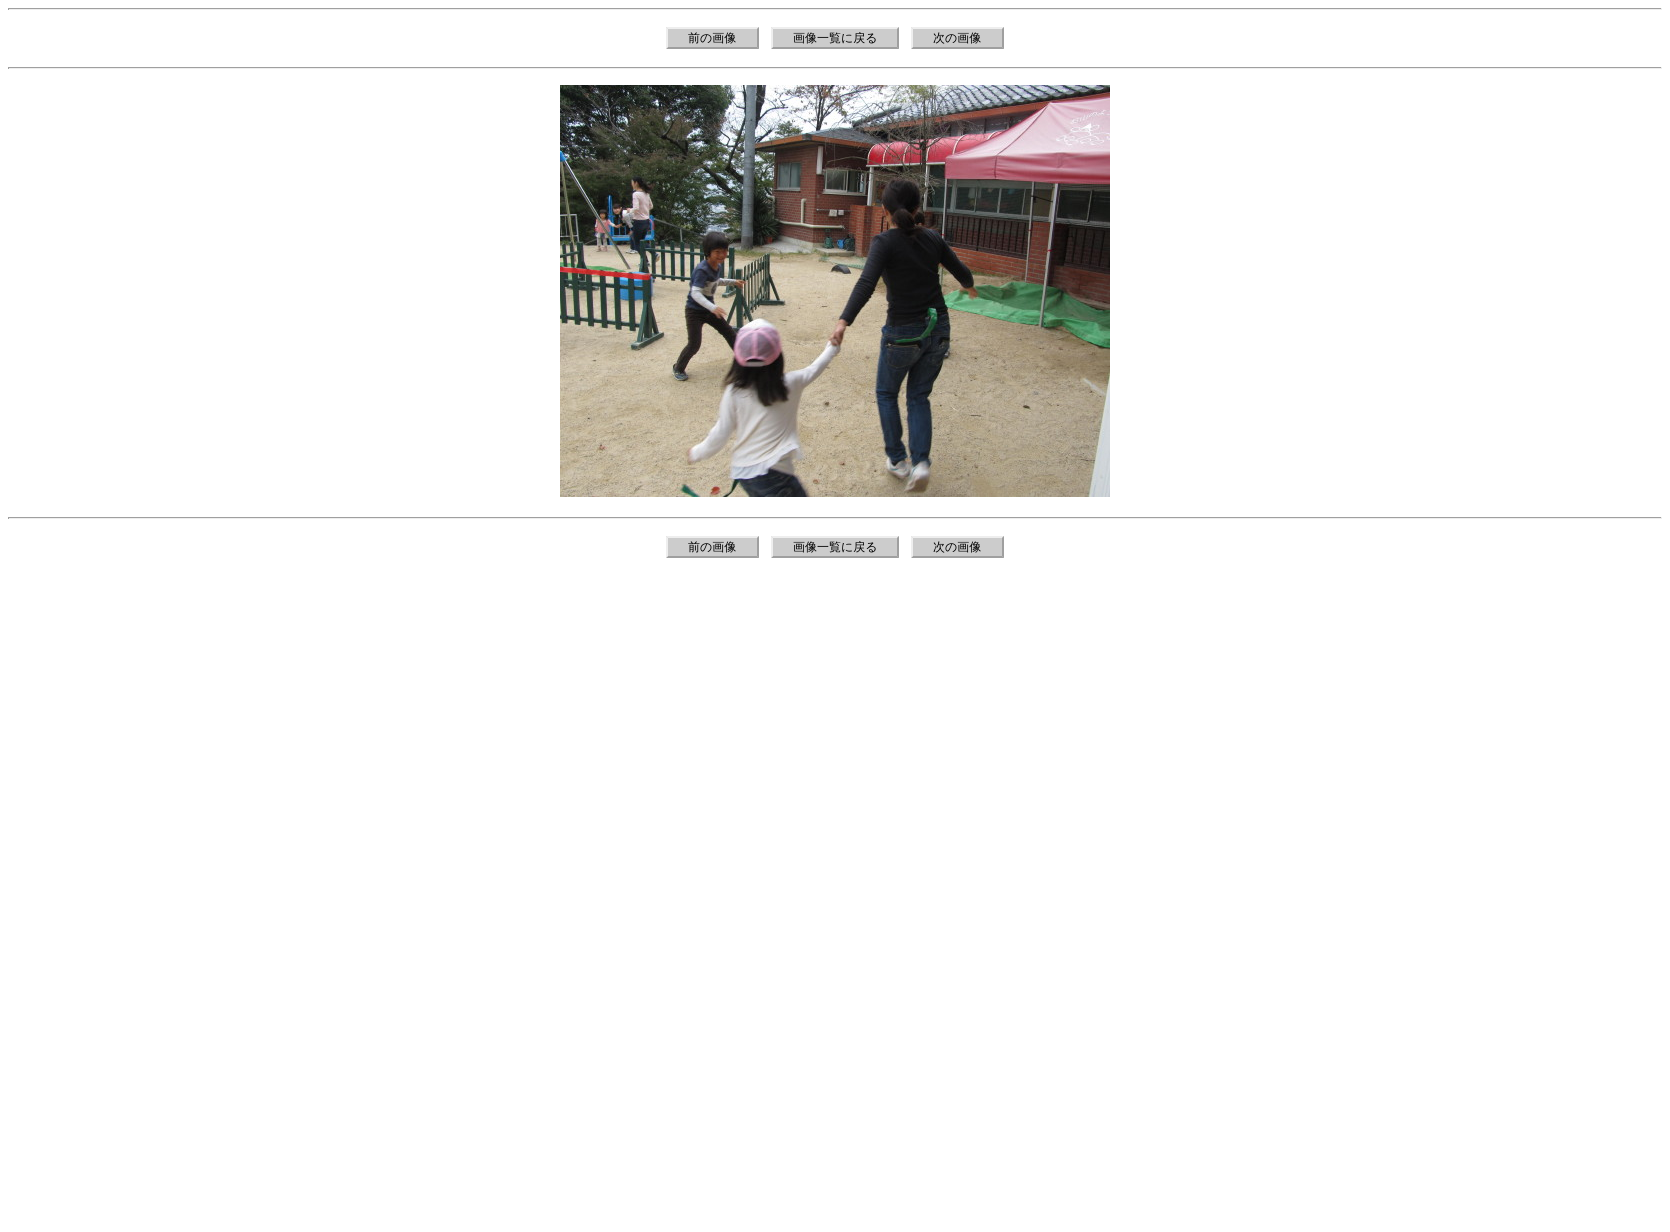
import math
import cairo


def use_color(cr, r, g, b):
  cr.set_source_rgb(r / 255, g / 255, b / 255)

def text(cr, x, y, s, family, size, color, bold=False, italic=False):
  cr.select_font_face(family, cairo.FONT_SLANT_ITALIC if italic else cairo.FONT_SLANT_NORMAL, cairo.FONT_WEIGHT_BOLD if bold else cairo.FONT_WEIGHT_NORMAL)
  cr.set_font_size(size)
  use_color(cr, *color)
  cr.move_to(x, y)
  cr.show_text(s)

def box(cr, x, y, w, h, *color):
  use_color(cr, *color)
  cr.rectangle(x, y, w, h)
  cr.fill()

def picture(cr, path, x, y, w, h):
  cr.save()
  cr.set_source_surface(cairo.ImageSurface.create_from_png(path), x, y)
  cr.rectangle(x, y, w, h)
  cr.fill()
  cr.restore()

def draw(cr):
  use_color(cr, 255, 255, 255)
  cr.paint()
  box(cr, 8, 8, 1654, 1, 159, 159, 159)
  box(cr, 1661, 8, 1, 2, 238, 238, 238)
  box(cr, 8, 9, 1654, 1, 238, 238, 238)
  box(cr, 8, 8, 1, 2, 159, 159, 159)
  box(cr, 666, 27, 93, 22, 204, 204, 204)
  use_color(cr, 238, 238, 238)
  cr.new_path()
  cr.move_to(666, 27)
  cr.line_to(759, 27)
  cr.line_to(757, 29)
  cr.line_to(668, 29)
  cr.close_path()
  cr.fill()
  use_color(cr, 159, 159, 159)
  cr.new_path()
  cr.move_to(759, 27)
  cr.line_to(759, 49)
  cr.line_to(757, 47)
  cr.line_to(757, 29)
  cr.close_path()
  cr.fill()
  cr.new_path()
  cr.move_to(759, 49)
  cr.line_to(666, 49)
  cr.line_to(668, 47)
  cr.line_to(757, 47)
  cr.close_path()
  cr.fill()
  use_color(cr, 238, 238, 238)
  cr.new_path()
  cr.move_to(666, 49)
  cr.line_to(666, 27)
  cr.line_to(668, 29)
  cr.line_to(668, 47)
  cr.close_path()
  cr.fill()
  box(cr, 771, 27, 128, 22, 204, 204, 204)
  use_color(cr, 238, 238, 238)
  cr.new_path()
  cr.move_to(771, 27)
  cr.line_to(899, 27)
  cr.line_to(897, 29)
  cr.line_to(773, 29)
  cr.close_path()
  cr.fill()
  use_color(cr, 159, 159, 159)
  cr.new_path()
  cr.move_to(899, 27)
  cr.line_to(899, 49)
  cr.line_to(897, 47)
  cr.line_to(897, 29)
  cr.close_path()
  cr.fill()
  cr.new_path()
  cr.move_to(899, 49)
  cr.line_to(771, 49)
  cr.line_to(773, 47)
  cr.line_to(897, 47)
  cr.close_path()
  cr.fill()
  use_color(cr, 238, 238, 238)
  cr.new_path()
  cr.move_to(771, 49)
  cr.line_to(771, 27)
  cr.line_to(773, 29)
  cr.line_to(773, 47)
  cr.close_path()
  cr.fill()
  box(cr, 911, 27, 93, 22, 204, 204, 204)
  use_color(cr, 238, 238, 238)
  cr.new_path()
  cr.move_to(911, 27)
  cr.line_to(1004, 27)
  cr.line_to(1002, 29)
  cr.line_to(913, 29)
  cr.close_path()
  cr.fill()
  use_color(cr, 159, 159, 159)
  cr.new_path()
  cr.move_to(1004, 27)
  cr.line_to(1004, 49)
  cr.line_to(1002, 47)
  cr.line_to(1002, 29)
  cr.close_path()
  cr.fill()
  cr.new_path()
  cr.move_to(1004, 49)
  cr.line_to(911, 49)
  cr.line_to(913, 47)
  cr.line_to(1002, 47)
  cr.close_path()
  cr.fill()
  use_color(cr, 238, 238, 238)
  cr.new_path()
  cr.move_to(911, 49)
  cr.line_to(911, 27)
  cr.line_to(913, 29)
  cr.line_to(913, 47)
  cr.close_path()
  cr.fill()
  box(cr, 8, 67, 1654, 1, 159, 159, 159)
  box(cr, 1661, 67, 1, 2, 238, 238, 238)
  box(cr, 8, 68, 1654, 1, 238, 238, 238)
  box(cr, 8, 67, 1, 2, 159, 159, 159)
  picture(cr, "img_01.png", 560, 85, 550, 412)
  box(cr, 8, 517, 1654, 1, 159, 159, 159)
  box(cr, 1661, 517, 1, 2, 238, 238, 238)
  box(cr, 8, 518, 1654, 1, 238, 238, 238)
  box(cr, 8, 517, 1, 2, 159, 159, 159)
  box(cr, 666, 536, 93, 22, 204, 204, 204)
  use_color(cr, 238, 238, 238)
  cr.new_path()
  cr.move_to(666, 536)
  cr.line_to(759, 536)
  cr.line_to(757, 538)
  cr.line_to(668, 538)
  cr.close_path()
  cr.fill()
  use_color(cr, 159, 159, 159)
  cr.new_path()
  cr.move_to(759, 536)
  cr.line_to(759, 558)
  cr.line_to(757, 556)
  cr.line_to(757, 538)
  cr.close_path()
  cr.fill()
  cr.new_path()
  cr.move_to(759, 558)
  cr.line_to(666, 558)
  cr.line_to(668, 556)
  cr.line_to(757, 556)
  cr.close_path()
  cr.fill()
  use_color(cr, 238, 238, 238)
  cr.new_path()
  cr.move_to(666, 558)
  cr.line_to(666, 536)
  cr.line_to(668, 538)
  cr.line_to(668, 556)
  cr.close_path()
  cr.fill()
  box(cr, 771, 536, 128, 22, 204, 204, 204)
  use_color(cr, 238, 238, 238)
  cr.new_path()
  cr.move_to(771, 536)
  cr.line_to(899, 536)
  cr.line_to(897, 538)
  cr.line_to(773, 538)
  cr.close_path()
  cr.fill()
  use_color(cr, 159, 159, 159)
  cr.new_path()
  cr.move_to(899, 536)
  cr.line_to(899, 558)
  cr.line_to(897, 556)
  cr.line_to(897, 538)
  cr.close_path()
  cr.fill()
  cr.new_path()
  cr.move_to(899, 558)
  cr.line_to(771, 558)
  cr.line_to(773, 556)
  cr.line_to(897, 556)
  cr.close_path()
  cr.fill()
  use_color(cr, 238, 238, 238)
  cr.new_path()
  cr.move_to(771, 558)
  cr.line_to(771, 536)
  cr.line_to(773, 538)
  cr.line_to(773, 556)
  cr.close_path()
  cr.fill()
  box(cr, 911, 536, 93, 22, 204, 204, 204)
  use_color(cr, 238, 238, 238)
  cr.new_path()
  cr.move_to(911, 536)
  cr.line_to(1004, 536)
  cr.line_to(1002, 538)
  cr.line_to(913, 538)
  cr.close_path()
  cr.fill()
  use_color(cr, 159, 159, 159)
  cr.new_path()
  cr.move_to(1004, 536)
  cr.line_to(1004, 558)
  cr.line_to(1002, 556)
  cr.line_to(1002, 538)
  cr.close_path()
  cr.fill()
  cr.new_path()
  cr.move_to(1004, 558)
  cr.line_to(911, 558)
  cr.line_to(913, 556)
  cr.line_to(1002, 556)
  cr.close_path()
  cr.fill()
  use_color(cr, 238, 238, 238)
  cr.new_path()
  cr.move_to(911, 558)
  cr.line_to(911, 536)
  cr.line_to(913, 538)
  cr.line_to(913, 556)
  cr.close_path()
  cr.fill()
  text(cr, 688, 42, "前の画像", "WenQuanYi Zen Hei Medium", 12, (0, 0, 0))
  text(cr, 793, 42, "画像一覧に戻る", "WenQuanYi Zen Hei Medium", 12, (0, 0, 0))
  text(cr, 933, 42, "次の画像", "WenQuanYi Zen Hei Medium", 12, (0, 0, 0))
  text(cr, 688, 551, "前の画像", "WenQuanYi Zen Hei Medium", 12, (0, 0, 0))
  text(cr, 793, 551, "画像一覧に戻る", "WenQuanYi Zen Hei Medium", 12, (0, 0, 0))
  text(cr, 933, 551, "次の画像", "WenQuanYi Zen Hei Medium", 12, (0, 0, 0))


surface = cairo.ImageSurface(cairo.FORMAT_RGB24, 1670, 1232)
cr = cairo.Context(surface)
options = cairo.FontOptions()
options.set_hint_metrics(cairo.HINT_METRICS_OFF)
options.set_hint_style(cairo.HINT_STYLE_NONE)
cr.set_font_options(options)
cr.set_miter_limit(4)
draw(cr)
surface.write_to_png("out.png")
